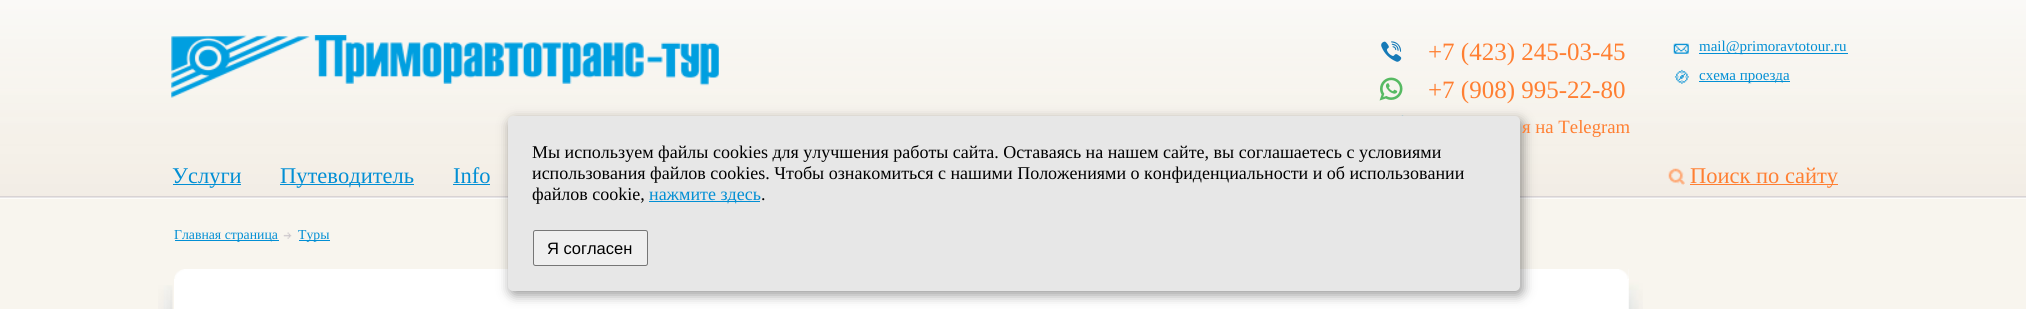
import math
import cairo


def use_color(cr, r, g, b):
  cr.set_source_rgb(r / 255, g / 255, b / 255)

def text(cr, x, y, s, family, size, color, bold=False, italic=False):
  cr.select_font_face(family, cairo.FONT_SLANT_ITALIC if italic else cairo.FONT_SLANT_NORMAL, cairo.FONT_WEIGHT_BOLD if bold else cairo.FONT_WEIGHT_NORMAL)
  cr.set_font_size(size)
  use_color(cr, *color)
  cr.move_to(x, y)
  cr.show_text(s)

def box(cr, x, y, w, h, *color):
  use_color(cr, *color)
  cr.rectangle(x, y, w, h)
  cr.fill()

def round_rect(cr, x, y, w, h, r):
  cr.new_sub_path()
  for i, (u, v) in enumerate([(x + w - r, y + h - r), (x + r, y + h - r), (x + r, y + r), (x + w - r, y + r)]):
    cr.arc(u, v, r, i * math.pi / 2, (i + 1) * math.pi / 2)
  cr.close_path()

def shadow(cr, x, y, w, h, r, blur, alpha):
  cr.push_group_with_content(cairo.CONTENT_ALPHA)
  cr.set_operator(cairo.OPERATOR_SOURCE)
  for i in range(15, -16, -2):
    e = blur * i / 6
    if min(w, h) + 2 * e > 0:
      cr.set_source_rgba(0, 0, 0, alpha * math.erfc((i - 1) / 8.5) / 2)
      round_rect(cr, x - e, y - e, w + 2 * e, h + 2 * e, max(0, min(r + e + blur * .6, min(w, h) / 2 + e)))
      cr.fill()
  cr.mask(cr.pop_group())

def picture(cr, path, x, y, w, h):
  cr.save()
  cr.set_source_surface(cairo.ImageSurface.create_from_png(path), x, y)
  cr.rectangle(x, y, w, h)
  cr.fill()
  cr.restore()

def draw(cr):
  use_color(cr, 248, 245, 238)
  cr.paint()
  picture(cr, "img_01.png", 0, 0, 2026, 199)
  picture(cr, "img_02.png", 171, 35, 548, 63)
  picture(cr, "img_03.png", 1381, 41, 21, 21)
  picture(cr, "img_04.png", 1379, 77, 24, 24)
  picture(cr, "img_05.png", 1401, 115, 3, 1)
  picture(cr, "img_06.png", 1673, 43, 16, 11)
  box(cr, 1699, 53, 149, 1, 2, 143, 212)
  picture(cr, "img_07.png", 1674, 69, 15, 15)
  box(cr, 1699, 81, 91, 1, 2, 143, 212)
  box(cr, 173, 184, 68, 1, 2, 143, 212)
  box(cr, 280, 184, 134, 1, 2, 143, 212)
  box(cr, 453, 184, 37, 1, 2, 143, 212)
  picture(cr, "img_08.png", 1668, 168, 17, 17)
  box(cr, 1690, 184, 148, 1, 255, 127, 50)
  box(cr, 175, 240, 104, 1, 2, 143, 212)
  picture(cr, "img_09.png", 283, 232, 9, 7)
  box(cr, 299, 240, 31, 1, 2, 143, 212)
  box(cr, 174, 269, 1455, 40, 255, 255, 255)
  picture(cr, "img_10.png", 174, 269, 10, 10)
  picture(cr, "img_11.png", 1619, 269, 10, 10)
  picture(cr, "img_12.png", 158, 285, 15, 24)
  picture(cr, "img_13.png", 1628, 280, 15, 29)
  use_color(cr, 0, 0, 0)
  shadow(cr, 510, 120, 1013, 175, 5, 6, 0.4)
  use_color(cr, 231, 231, 231)
  round_rect(cr, 508, 116, 1012, 175, 5)
  cr.fill()
  box(cr, 649, 201, 111, 1, 2, 143, 212)
  use_color(cr, 239, 239, 239)
  round_rect(cr, 533.5, 230.5, 114, 35, 2)
  cr.fill_preserve()
  use_color(cr, 118, 118, 118)
  cr.set_line_width(1)
  cr.stroke()
  text(cr, 1428, 60, "+7 (423) 245-03-45", "Liberation Serif", 25, (255, 127, 50))
  text(cr, 1428, 98, "+7 (908) 995-22-80", "Liberation Serif", 25, (255, 127, 50))
  text(cr, 1522, 133, "я на Telegram", "Liberation Serif", 18.75, (255, 127, 50))
  text(cr, 1699, 51, "mail@primoravtotour.ru", "Liberation Serif", 15, (2, 143, 212))
  text(cr, 1699, 80, "схема проезда", "Liberation Serif", 15, (2, 143, 212))
  text(cr, 172, 183, "Услуги", "Liberation Serif", 22.5, (2, 143, 212))
  text(cr, 280, 183, "Путеводитель", "Liberation Serif", 22.5, (2, 143, 212))
  text(cr, 453, 183, "Info", "Liberation Serif", 22.5, (2, 143, 212))
  text(cr, 1690, 183, "Поиск по сайту", "Liberation Serif", 22.5, (255, 127, 50))
  text(cr, 174, 239, "Главная страница", "Liberation Serif", 13.75, (2, 143, 212))
  text(cr, 298, 239, "Туры", "Liberation Serif", 13.75, (2, 143, 212))
  text(cr, 532, 158, "Мы используем файлы cookies для улучшения работы сайта. Оставаясь на нашем сайте, вы соглашаетесь с условиями", "Liberation Serif", 18, (0, 0, 0))
  text(cr, 532, 179, "использования файлов cookies. Чтобы ознакомиться с нашими Положениями о конфиденциальности и об использовании", "Liberation Serif", 18, (0, 0, 0))
  text(cr, 532, 200, "файлов cookie,", "Liberation Serif", 18, (0, 0, 0))
  text(cr, 649, 200, "нажмите здесь", "Liberation Serif", 18, (2, 143, 212))
  text(cr, 761, 200, ".", "Liberation Serif", 18, (0, 0, 0))
  text(cr, 547, 254, "Я согласен", "Liberation Sans", 16.5, (0, 0, 0))


surface = cairo.ImageSurface(cairo.FORMAT_RGB24, 2026, 309)
cr = cairo.Context(surface)
options = cairo.FontOptions()
options.set_hint_metrics(cairo.HINT_METRICS_OFF)
options.set_hint_style(cairo.HINT_STYLE_NONE)
cr.set_font_options(options)
cr.set_miter_limit(4)
draw(cr)
surface.write_to_png("out.png")
